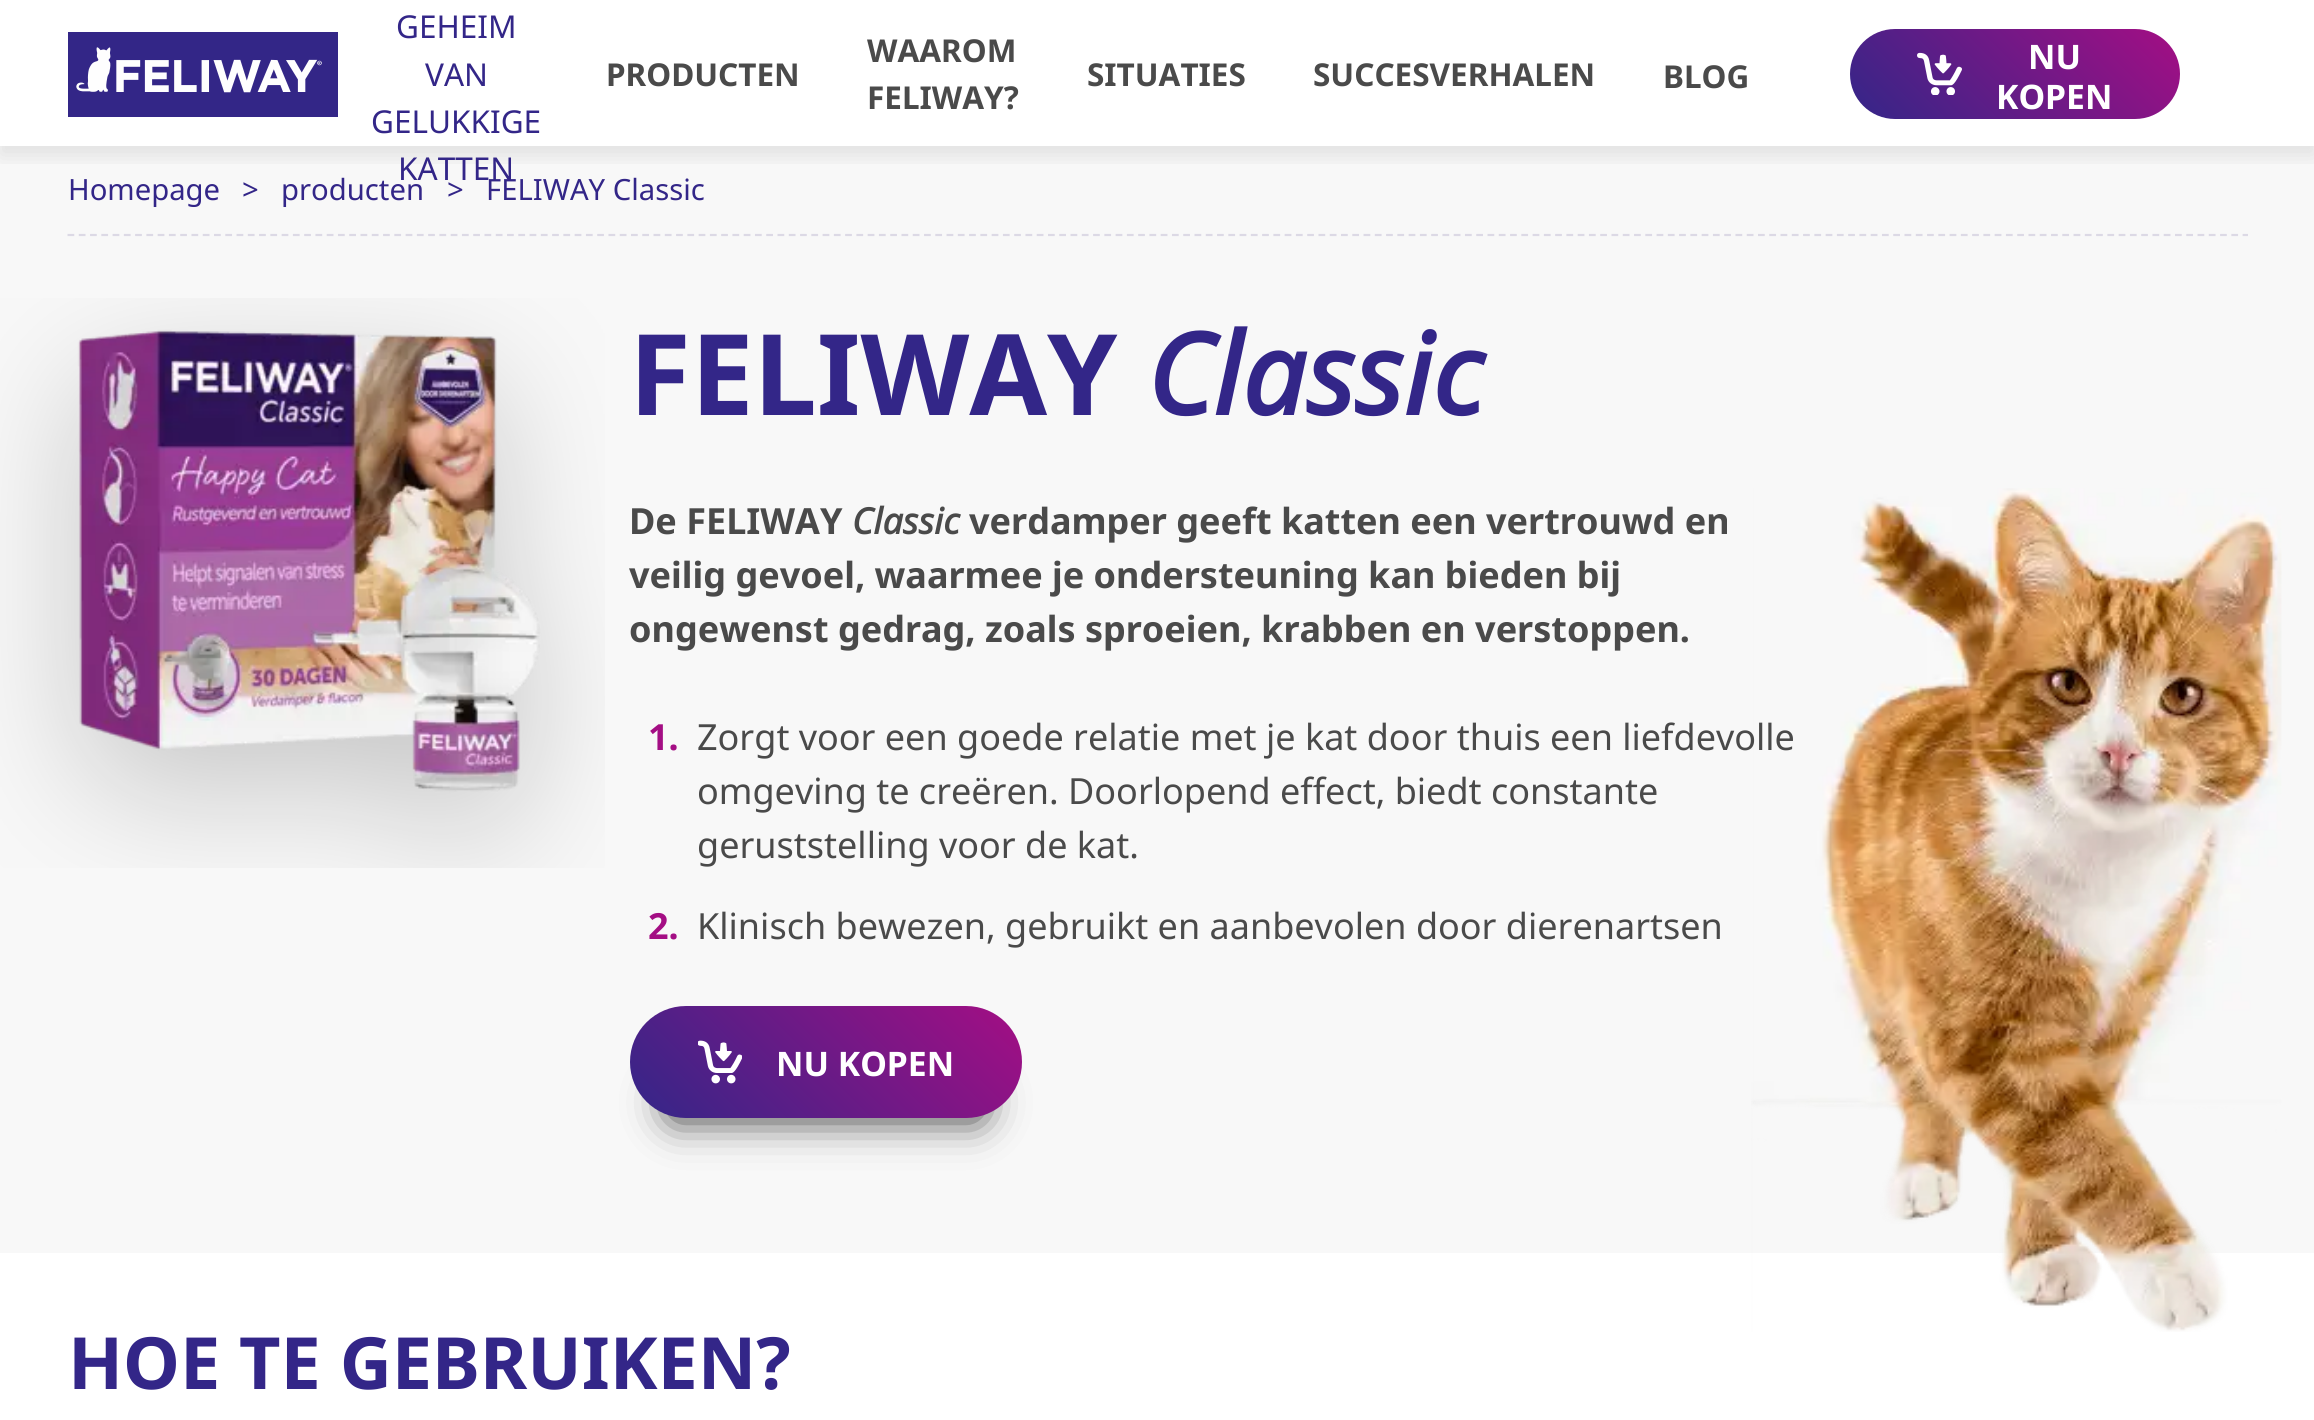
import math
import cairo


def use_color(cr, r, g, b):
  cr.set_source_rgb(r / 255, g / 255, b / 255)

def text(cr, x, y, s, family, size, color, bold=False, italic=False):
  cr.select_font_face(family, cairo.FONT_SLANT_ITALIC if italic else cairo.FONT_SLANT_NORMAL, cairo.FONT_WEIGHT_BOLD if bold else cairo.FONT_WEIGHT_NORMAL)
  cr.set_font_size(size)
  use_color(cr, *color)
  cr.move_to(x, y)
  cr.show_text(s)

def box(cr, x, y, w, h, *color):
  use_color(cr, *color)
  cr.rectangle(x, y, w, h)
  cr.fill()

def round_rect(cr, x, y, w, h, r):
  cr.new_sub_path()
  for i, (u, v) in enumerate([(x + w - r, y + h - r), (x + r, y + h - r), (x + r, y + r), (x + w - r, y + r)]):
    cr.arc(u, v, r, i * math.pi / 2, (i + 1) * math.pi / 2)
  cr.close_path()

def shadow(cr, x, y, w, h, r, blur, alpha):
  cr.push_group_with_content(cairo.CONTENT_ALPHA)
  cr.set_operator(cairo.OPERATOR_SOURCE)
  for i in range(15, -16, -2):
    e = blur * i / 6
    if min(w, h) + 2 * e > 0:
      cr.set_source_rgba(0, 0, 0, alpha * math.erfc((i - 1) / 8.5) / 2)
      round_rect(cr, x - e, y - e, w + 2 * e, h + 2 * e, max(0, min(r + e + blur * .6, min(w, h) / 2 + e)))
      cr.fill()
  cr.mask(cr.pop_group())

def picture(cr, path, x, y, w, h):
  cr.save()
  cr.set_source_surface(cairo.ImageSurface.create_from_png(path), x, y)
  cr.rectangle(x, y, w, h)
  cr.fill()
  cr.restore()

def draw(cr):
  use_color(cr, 255, 255, 255)
  cr.paint()
  box(cr, 0, 146, 2314, 1107, 248, 248, 248)
  cr.save()
  cr.rectangle(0, 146, 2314, 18)
  cr.clip()
  use_color(cr, 0, 0, 0)
  shadow(cr, 0, 9, 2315, 146, 0, 11, 0.1)
  cr.restore()
  picture(cr, "img_01.png", 68, 32, 270, 85)
  gradient = cairo.LinearGradient(1910, 179, 2120, -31)
  gradient.add_color_stop_rgba(0, 0.2, 0.149, 0.533, 1)
  gradient.add_color_stop_rgba(1, 0.643, 0.055, 0.518, 1)
  cr.set_source(gradient)
  round_rect(cr, 1850, 29, 330, 90, 45)
  cr.fill()
  picture(cr, "img_02.png", 1917, 52, 45, 43)
  cr.new_path()
  cr.move_to(67.5, 235)
  cr.line_to(2248, 235)
  use_color(cr, 220, 217, 229)
  cr.set_line_width(2.2)
  cr.set_dash([6.75, 4.52])
  cr.stroke()
  picture(cr, "img_03.png", 0, 298, 605, 570)
  use_color(cr, 0, 0, 0)
  shadow(cr, 675, 1091, 302, 23, 11.5, 22.5, 1)
  gradient = cairo.LinearGradient(700, 1188, 952, 936)
  gradient.add_color_stop_rgba(0, 0.2, 0.149, 0.533, 1)
  gradient.add_color_stop_rgba(1, 0.643, 0.055, 0.518, 1)
  cr.set_source(gradient)
  round_rect(cr, 630, 1006, 392, 112, 56)
  cr.fill()
  picture(cr, "img_04.png", 698, 1040, 44, 44)
  picture(cr, "img_05.png", 1751, 488, 531, 844)
  text(cr, 396, 38, "GEHEIM", "Noto Sans", 31.5, (51, 38, 136))
  text(cr, 425, 86, "VAN", "Noto Sans", 31.5, (51, 38, 136))
  text(cr, 371, 133, "GELUKKIGE", "Noto Sans", 31.5, (51, 38, 136))
  text(cr, 398, 180, "KATTEN", "Noto Sans", 31.5, (51, 38, 136))
  text(cr, 606, 86, "PRODUCTEN", "Noto Sans", 31.5, (74, 74, 74), bold=True)
  text(cr, 867, 62, "WAAROM", "Noto Sans", 31.5, (74, 74, 74), bold=True)
  text(cr, 867, 109, "FELIWAY?", "Noto Sans", 31.5, (74, 74, 74), bold=True)
  text(cr, 1087, 86, "SITUATIES", "Noto Sans", 31.5, (74, 74, 74), bold=True)
  text(cr, 1313, 86, "SUCCESVERHALEN", "Noto Sans", 31.5, (74, 74, 74), bold=True)
  text(cr, 1663, 88, "BLOG", "Noto Sans", 31.5, (74, 74, 74), bold=True)
  text(cr, 2028, 69, "NU", "Noto Sans", 33.75, (255, 255, 255), bold=True)
  text(cr, 1996, 109, "KOPEN", "Noto Sans", 33.75, (255, 255, 255), bold=True)
  text(cr, 68, 200, "Homepage", "Noto Sans", 29.25, (51, 38, 136))
  text(cr, 242, 200, ">", "Noto Sans", 29.25, (51, 38, 136))
  text(cr, 281, 200, "producten", "Noto Sans", 29.25, (51, 38, 136))
  text(cr, 447, 200, ">", "Noto Sans", 29.25, (51, 38, 136))
  text(cr, 486, 200, "FELIWAY Classic", "Noto Sans", 29.25, (51, 38, 136))
  text(cr, 629, 415, "FELIWAY", "Noto Sans", 112.5, (51, 38, 136), bold=True)
  text(cr, 1147, 415, "Classic", "Noto Sans", 112.5, (51, 38, 136), bold=True, italic=True)
  text(cr, 629, 534, "De FELIWAY", "Noto Sans", 36, (74, 74, 74), bold=True)
  text(cr, 852, 534, "Classic", "Noto Sans", 36, (74, 74, 74), bold=True, italic=True)
  text(cr, 969, 534, "verdamper geeft katten een vertrouwd en", "Noto Sans", 36, (74, 74, 74), bold=True)
  text(cr, 629, 588, "veilig gevoel, waarmee je ondersteuning kan bieden bij", "Noto Sans", 36, (74, 74, 74), bold=True)
  text(cr, 629, 642, "ongewenst gedrag, zoals sproeien, krabben en verstoppen.", "Noto Sans", 36, (74, 74, 74), bold=True)
  text(cr, 648, 750, "1.", "Noto Sans", 36, (164, 14, 132), bold=True)
  text(cr, 697, 750, "Zorgt voor een goede relatie met je kat door thuis een liefdevolle", "Noto Sans", 36, (74, 74, 74))
  text(cr, 697, 804, "omgeving te creëren. Doorlopend effect, biedt constante", "Noto Sans", 36, (74, 74, 74))
  text(cr, 697, 858, "geruststelling voor de kat.", "Noto Sans", 36, (74, 74, 74))
  text(cr, 648, 939, "2.", "Noto Sans", 36, (164, 14, 132), bold=True)
  text(cr, 697, 939, "Klinisch bewezen, gebruikt en aanbevolen door dierenartsen", "Noto Sans", 36, (74, 74, 74))
  text(cr, 776, 1076, "NU KOPEN", "Noto Sans", 33.75, (255, 255, 255), bold=True)
  text(cr, 68, 1389, "HOE TE GEBRUIKEN?", "Noto Sans", 72, (51, 38, 136), bold=True)


surface = cairo.ImageSurface(cairo.FORMAT_RGB24, 2314, 1420)
cr = cairo.Context(surface)
options = cairo.FontOptions()
options.set_hint_metrics(cairo.HINT_METRICS_OFF)
options.set_hint_style(cairo.HINT_STYLE_NONE)
cr.set_font_options(options)
cr.set_miter_limit(4)
draw(cr)
surface.write_to_png("out.png")
